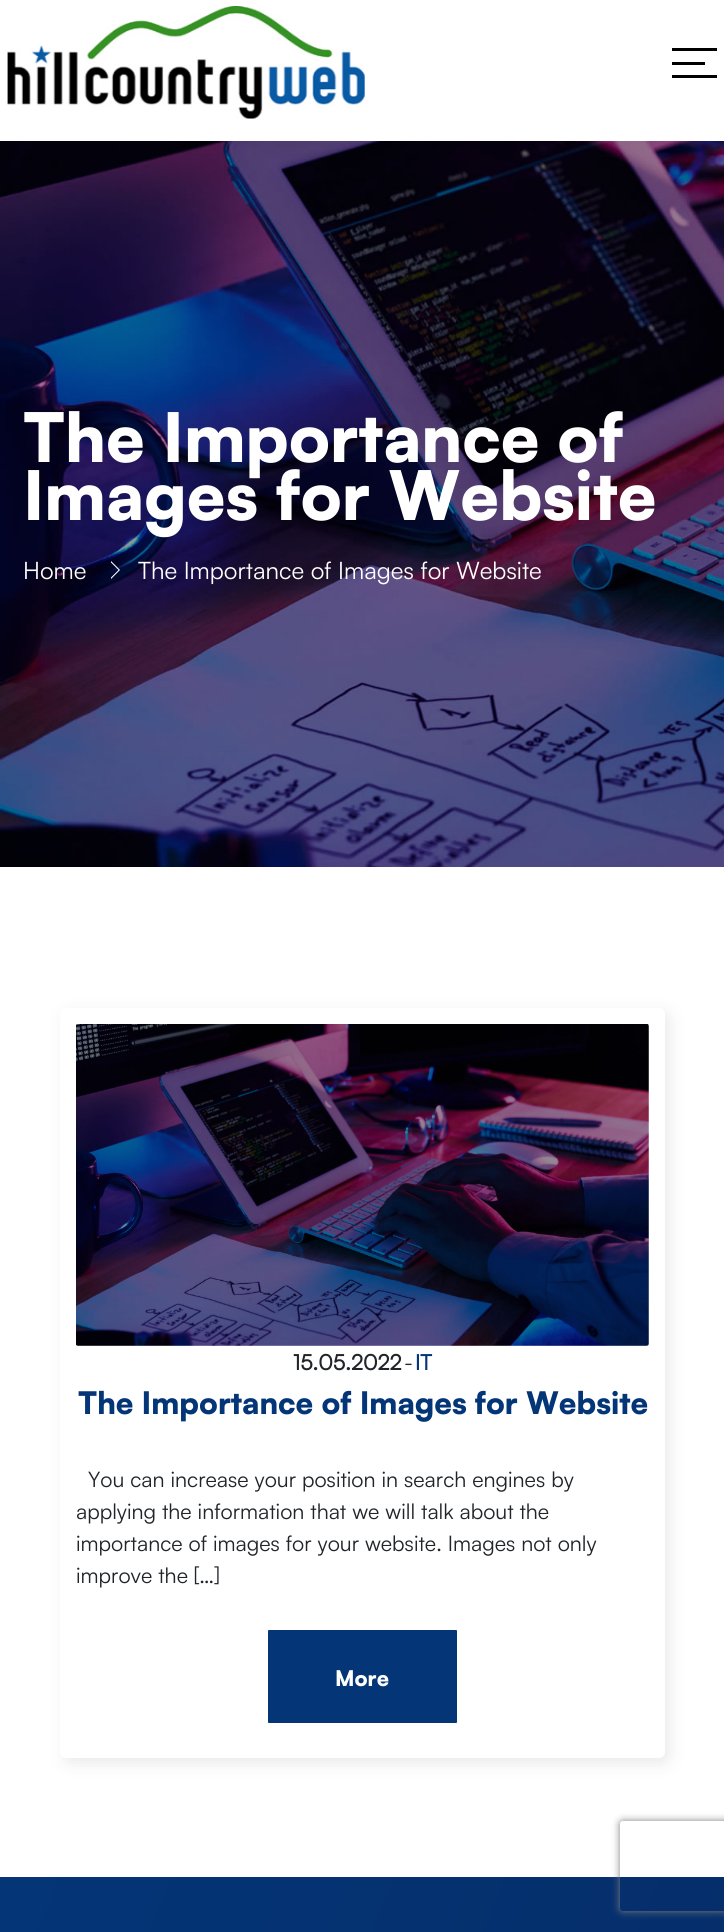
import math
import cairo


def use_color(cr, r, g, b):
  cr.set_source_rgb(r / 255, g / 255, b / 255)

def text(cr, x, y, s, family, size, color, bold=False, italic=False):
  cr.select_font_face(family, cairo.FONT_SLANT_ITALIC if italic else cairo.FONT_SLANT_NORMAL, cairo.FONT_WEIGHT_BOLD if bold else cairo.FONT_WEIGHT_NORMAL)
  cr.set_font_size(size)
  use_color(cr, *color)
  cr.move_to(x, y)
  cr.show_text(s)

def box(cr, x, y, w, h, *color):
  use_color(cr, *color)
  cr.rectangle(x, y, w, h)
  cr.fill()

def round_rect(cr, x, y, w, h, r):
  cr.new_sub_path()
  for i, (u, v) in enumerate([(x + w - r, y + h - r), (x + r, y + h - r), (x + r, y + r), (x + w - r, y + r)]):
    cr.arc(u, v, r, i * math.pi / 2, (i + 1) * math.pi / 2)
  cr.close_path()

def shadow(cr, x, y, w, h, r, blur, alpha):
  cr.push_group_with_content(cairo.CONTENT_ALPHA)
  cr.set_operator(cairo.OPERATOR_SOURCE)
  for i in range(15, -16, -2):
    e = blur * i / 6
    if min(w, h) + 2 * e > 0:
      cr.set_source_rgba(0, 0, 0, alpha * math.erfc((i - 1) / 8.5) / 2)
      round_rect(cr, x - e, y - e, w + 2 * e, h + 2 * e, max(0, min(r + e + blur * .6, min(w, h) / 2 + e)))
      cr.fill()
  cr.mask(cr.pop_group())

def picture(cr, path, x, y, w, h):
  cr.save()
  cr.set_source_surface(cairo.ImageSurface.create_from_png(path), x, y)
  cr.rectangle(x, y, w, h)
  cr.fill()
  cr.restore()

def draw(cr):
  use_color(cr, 255, 255, 255)
  cr.paint()
  picture(cr, "img_01.png", 7, 6, 358, 113)
  box(cr, 672, 48, 45, 3, 0, 0, 0)
  box(cr, 672, 62, 33, 3, 0, 0, 0)
  box(cr, 672, 75, 45, 3, 0, 0, 0)
  picture(cr, "img_02.png", 0, 141, 724, 726)
  use_color(cr, 255, 255, 255)
  cr.new_path()
  cr.move_to(118.5, 570)
  cr.line_to(111, 577.5)
  cr.line_to(111, 579)
  cr.line_to(120, 570)
  cr.line_to(111, 561)
  cr.line_to(111, 562.5)
  cr.close_path()
  cr.fill()
  use_color(cr, 0, 0, 0)
  shadow(cr, 65, 1013, 604, 750, 6, 8.5, 0.09)
  use_color(cr, 255, 255, 255)
  round_rect(cr, 60, 1008, 605, 750, 6)
  cr.fill()
  picture(cr, "img_03.png", 76, 1024, 573, 322)
  picture(cr, "img_04.png", 76, 1024, 573, 322)
  use_color(cr, 4, 53, 119)
  round_rect(cr, 267.5, 1629.5, 190, 94, 1.5)
  cr.fill_preserve()
  use_color(cr, 255, 255, 255)
  cr.set_line_width(1)
  cr.stroke()
  gradient = cairo.LinearGradient(-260, 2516, 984, 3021)
  gradient.add_color_stop_rgba(0, 0.016, 0.208, 0.467, 1)
  gradient.add_color_stop_rgba(1, 0.024, 0.157, 0.376, 1)
  cr.set_source(gradient)
  cr.rectangle(0, 1877, 724, 55)
  cr.fill()
  cr.save()
  cr.set_fill_rule(cairo.FILL_RULE_EVEN_ODD)
  cr.new_path()
  cr.move_to(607, 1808)
  cr.line_to(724, 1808)
  cr.line_to(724, 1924)
  cr.line_to(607, 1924)
  cr.close_path()
  cr.move_to(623, 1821)
  cr.line_to(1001, 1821)
  cr.curve_to(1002.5, 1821, 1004, 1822.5, 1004, 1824)
  cr.line_to(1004, 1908)
  cr.curve_to(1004, 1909.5, 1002.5, 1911, 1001, 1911)
  cr.line_to(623, 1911)
  cr.curve_to(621.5, 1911, 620, 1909.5, 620, 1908)
  cr.line_to(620, 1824)
  cr.curve_to(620, 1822.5, 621.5, 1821, 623, 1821)
  cr.close_path()
  cr.clip()
  use_color(cr, 128, 128, 128)
  shadow(cr, 620, 1821, 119, 90, 3, 4, 1)
  cr.restore()
  text(cr, 23, 462, "The Importance of", "Satoshi Black", 67.5, (255, 255, 255))
  text(cr, 23, 520, "Images for Website", "Satoshi Black", 67.5, (255, 255, 255))
  text(cr, 23, 579, "Home", "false", 24, (255, 255, 255))
  text(cr, 138, 579, "The Importance of Images for Website", "false", 24, (255, 255, 255))
  text(cr, 293, 1370, "15.05.2022", "false", 21.4, (33, 37, 41), bold=True)
  text(cr, 404, 1370, "-", "false", 21.4, (33, 37, 41))
  text(cr, 415, 1370, "IT", "false", 21.4, (4, 53, 119), bold=True)
  text(cr, 78, 1414, "The Importance of Images for Website", "Satoshi Black", 30.75, (4, 53, 119))
  text(cr, 88, 1487, "You can increase your position in search engines by", "false", 21.4, (33, 37, 41))
  text(cr, 76, 1519, "applying the information that we will talk about the", "false", 21.4, (33, 37, 41))
  text(cr, 76, 1551, "importance of images for your website. Images not only", "false", 21.4, (33, 37, 41))
  text(cr, 76, 1583, "improve the […]", "false", 21.4, (33, 37, 41))
  text(cr, 335, 1686, "More", "Satoshi Black", 21.4, (255, 255, 255))


surface = cairo.ImageSurface(cairo.FORMAT_RGB24, 724, 1932)
cr = cairo.Context(surface)
options = cairo.FontOptions()
options.set_hint_metrics(cairo.HINT_METRICS_OFF)
options.set_hint_style(cairo.HINT_STYLE_NONE)
cr.set_font_options(options)
cr.set_miter_limit(4)
draw(cr)
surface.write_to_png("out.png")
